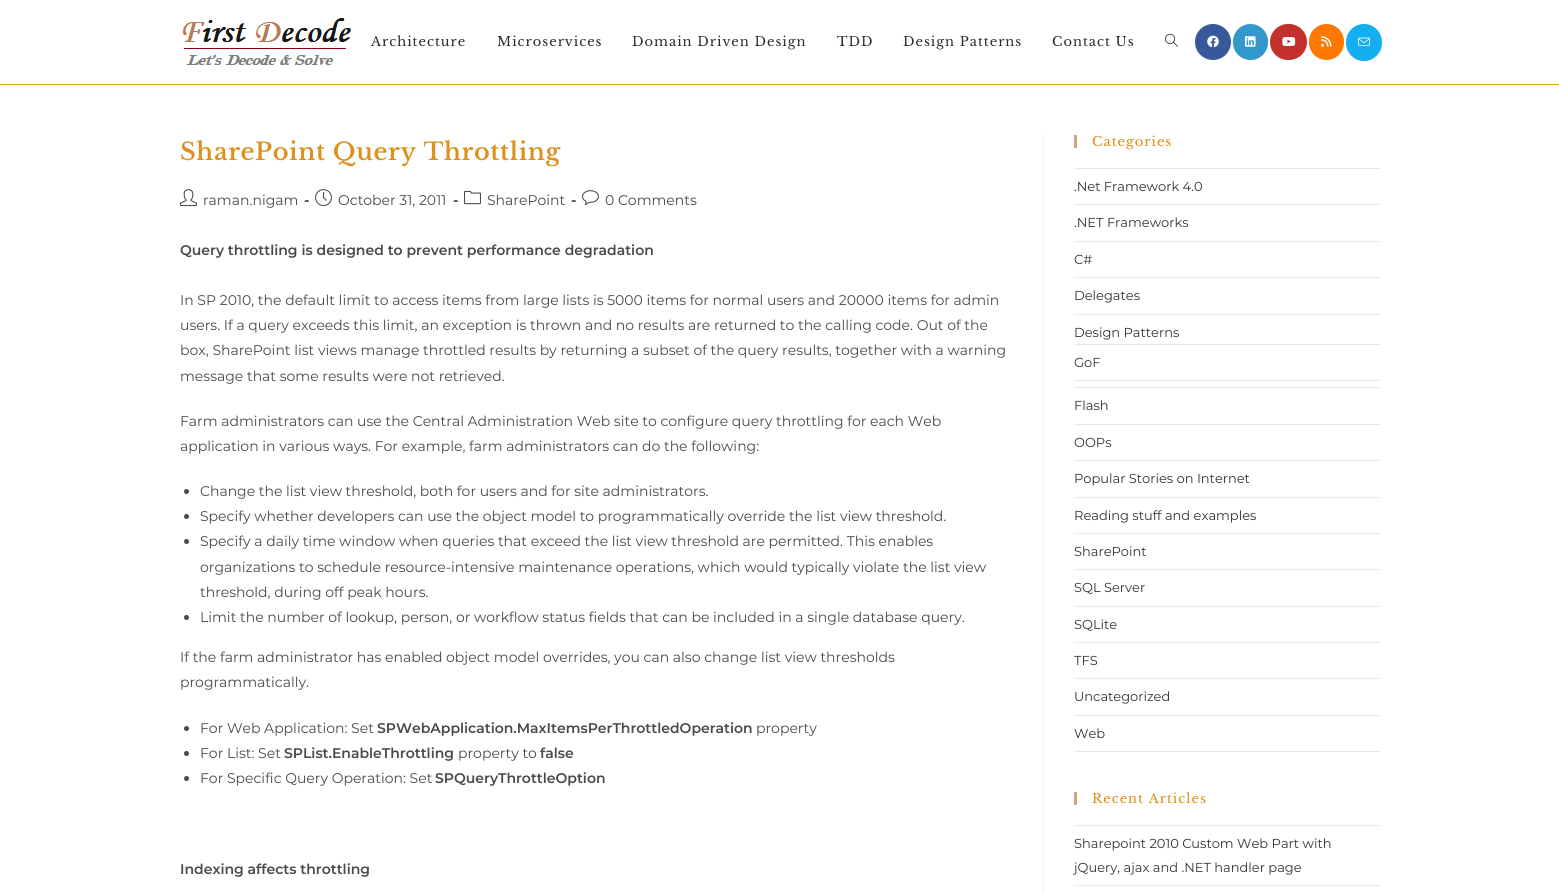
import math
import cairo


def use_color(cr, r, g, b):
  cr.set_source_rgb(r / 255, g / 255, b / 255)

def text(cr, x, y, s, family, size, color, bold=False, italic=False):
  cr.select_font_face(family, cairo.FONT_SLANT_ITALIC if italic else cairo.FONT_SLANT_NORMAL, cairo.FONT_WEIGHT_BOLD if bold else cairo.FONT_WEIGHT_NORMAL)
  cr.set_font_size(size)
  use_color(cr, *color)
  cr.move_to(x, y)
  cr.show_text(s)

def spaced_text(cr, x, y, s, letter, word):
  cr.move_to(x, y)
  for ch in s:
    cr.show_text(ch)
    cr.rel_move_to(letter + word * (ch == ' '), 0)

def box(cr, x, y, w, h, *color):
  use_color(cr, *color)
  cr.rectangle(x, y, w, h)
  cr.fill()

def round_rect(cr, x, y, w, h, r):
  cr.new_sub_path()
  for i, (u, v) in enumerate([(x + w - r, y + h - r), (x + r, y + h - r), (x + r, y + r), (x + w - r, y + r)]):
    cr.arc(u, v, r, i * math.pi / 2, (i + 1) * math.pi / 2)
  cr.close_path()

def picture(cr, path, x, y, w, h):
  cr.save()
  cr.set_source_surface(cairo.ImageSurface.create_from_png(path), x, y)
  cr.rectangle(x, y, w, h)
  cr.fill()
  cr.restore()

def draw(cr):
  use_color(cr, 255, 255, 255)
  cr.paint()
  box(cr, 0, 84, 1559, 1, 221, 153, 51)
  picture(cr, "img_01.png", 182, 18, 169, 47)
  picture(cr, "img_02.png", 1165, 33, 13, 14)
  use_color(cr, 55, 88, 155)
  cr.arc(1213, 42, 18, 0, 2 * math.pi)
  cr.fill()
  picture(cr, "img_03.png", 1207, 35, 12, 13)
  use_color(cr, 51, 153, 204)
  round_rect(cr, 1233, 24, 35, 36, 17.5)
  cr.fill()
  picture(cr, "img_04.png", 1245, 36, 11, 11)
  use_color(cr, 196, 48, 43)
  round_rect(cr, 1270, 24, 37, 36, 18)
  cr.fill()
  picture(cr, "img_05.png", 1282, 37, 14, 9)
  use_color(cr, 255, 121, 0)
  round_rect(cr, 1309, 24, 35, 36, 17.5)
  cr.fill()
  picture(cr, "img_06.png", 1321, 36, 11, 11)
  use_color(cr, 19, 175, 240)
  round_rect(cr, 1346, 24, 36, 37, 18)
  cr.fill()
  picture(cr, "img_07.png", 1358, 37, 12, 9)
  box(cr, 1043, 135, 1, 758, 241, 241, 241)
  picture(cr, "img_08.png", 180, 189, 17, 18)
  picture(cr, "img_09.png", 315, 189, 17, 18)
  picture(cr, "img_10.png", 464, 190, 17, 15)
  picture(cr, "img_11.png", 582, 190, 17, 15)
  use_color(cr, 74, 74, 74)
  cr.arc(186.5, 491.5, 2.5, 0, 2 * math.pi)
  cr.fill()
  cr.arc(186.5, 516.5, 2.5, 0, 2 * math.pi)
  cr.fill()
  cr.arc(186.5, 541.5, 2.5, 0, 2 * math.pi)
  cr.fill()
  cr.arc(186.5, 617.5, 2.5, 0, 2 * math.pi)
  cr.fill()
  cr.arc(186.5, 728.5, 2.5, 0, 2 * math.pi)
  cr.fill()
  cr.arc(186.5, 753.5, 2.5, 0, 2 * math.pi)
  cr.fill()
  cr.arc(186.5, 778.5, 2.5, 0, 2 * math.pi)
  cr.fill()
  box(cr, 1074, 135, 3, 13, 204, 168, 118)
  box(cr, 1074, 168, 306, 1, 233, 233, 233)
  box(cr, 1074, 204, 306, 1, 233, 233, 233)
  box(cr, 1074, 241, 306, 1, 233, 233, 233)
  box(cr, 1074, 277, 306, 1, 233, 233, 233)
  box(cr, 1074, 314, 306, 1, 233, 233, 233)
  box(cr, 1074, 387, 306, 1, 233, 233, 233)
  box(cr, 1074, 344, 306, 1, 233, 233, 233)
  box(cr, 1074, 380, 306, 1, 233, 233, 233)
  box(cr, 1074, 424, 306, 1, 233, 233, 233)
  box(cr, 1074, 460, 306, 1, 233, 233, 233)
  box(cr, 1074, 497, 306, 1, 233, 233, 233)
  box(cr, 1074, 533, 306, 1, 233, 233, 233)
  box(cr, 1074, 569, 306, 1, 233, 233, 233)
  box(cr, 1074, 606, 306, 1, 233, 233, 233)
  box(cr, 1074, 642, 306, 1, 233, 233, 233)
  box(cr, 1074, 678, 306, 1, 233, 233, 233)
  box(cr, 1074, 715, 306, 1, 233, 233, 233)
  box(cr, 1074, 751, 306, 1, 233, 233, 233)
  box(cr, 1074, 792, 3, 13, 204, 168, 118)
  box(cr, 1074, 825, 306, 1, 233, 233, 233)
  box(cr, 1074, 885, 306, 1, 233, 233, 233)
  cr.select_font_face("Libre Baskerville")
  cr.set_font_size(13)
  use_color(cr, 44, 44, 44)
  spaced_text(cr, 371, 46, "Architecture", 1, 0)
  spaced_text(cr, 497, 46, "Microservices", 1, 0)
  spaced_text(cr, 632, 46, "Domain Driven Design", 1, 0)
  spaced_text(cr, 837, 46, "TDD", 1, 0)
  spaced_text(cr, 903, 46, "Design Patterns", 1, 0)
  spaced_text(cr, 1052, 46, "Contact Us", 1, 0)
  cr.select_font_face("Libre Baskerville SemiBold")
  cr.set_font_size(24)
  use_color(cr, 221, 144, 28)
  spaced_text(cr, 180, 160, "SharePoint Query Throttling", 0.6, 0)
  text(cr, 203, 205, "raman.nigam", "Montserrat", 14, (74, 74, 74))
  text(cr, 304, 205, "-", "Montserrat", 14, (74, 74, 74), bold=True)
  text(cr, 338, 205, "October 31, 2011", "Montserrat", 14, (74, 74, 74))
  text(cr, 453, 205, "-", "Montserrat", 14, (74, 74, 74), bold=True)
  text(cr, 487, 205, "SharePoint", "Montserrat", 14, (74, 74, 74))
  text(cr, 571, 205, "-", "Montserrat", 14, (74, 74, 74), bold=True)
  text(cr, 605, 205, "0 Comments", "Montserrat", 14, (74, 74, 74))
  text(cr, 180, 255, "Query throttling is designed to prevent performance degradation", "Montserrat SemiBold", 14, (74, 74, 74))
  text(cr, 180, 305, "In SP 2010, the default limit to access items from large lists is 5000 items for normal users and 20000 items for admin", "Montserrat", 14, (74, 74, 74))
  text(cr, 180, 330, "users. If a query exceeds this limit, an exception is thrown and no results are returned to the calling code. Out of the", "Montserrat", 14, (74, 74, 74))
  text(cr, 180, 355, "box, SharePoint list views manage throttled results by returning a subset of the query results, together with a warning", "Montserrat", 14, (74, 74, 74))
  text(cr, 180, 381, "message that some results were not retrieved.", "Montserrat", 14, (74, 74, 74))
  text(cr, 180, 426, "Farm administrators can use the Central Administration Web site to configure query throttling for each Web", "Montserrat", 14, (74, 74, 74))
  text(cr, 180, 451, "application in various ways. For example, farm administrators can do the following:", "Montserrat", 14, (74, 74, 74))
  text(cr, 200, 496, "Change the list view threshold, both for users and for site administrators.", "Montserrat", 14, (74, 74, 74))
  text(cr, 200, 521, "Specify whether developers can use the object model to programmatically override the list view threshold.", "Montserrat", 14, (74, 74, 74))
  text(cr, 200, 546, "Specify a daily time window when queries that exceed the list view threshold are permitted. This enables", "Montserrat", 14, (74, 74, 74))
  text(cr, 200, 572, "organizations to schedule resource-intensive maintenance operations, which would typically violate the list view", "Montserrat", 14, (74, 74, 74))
  text(cr, 200, 597, "threshold, during off peak hours.", "Montserrat", 14, (74, 74, 74))
  text(cr, 200, 622, "Limit the number of lookup, person, or workflow status fields that can be included in a single database query.", "Montserrat", 14, (74, 74, 74))
  text(cr, 180, 662, "If the farm administrator has enabled object model overrides, you can also change list view thresholds", "Montserrat", 14, (74, 74, 74))
  text(cr, 180, 687, "programmatically.", "Montserrat", 14, (74, 74, 74))
  text(cr, 200, 733, "For Web Application: Set", "Montserrat", 14, (74, 74, 74))
  text(cr, 377, 733, "SPWebApplication.MaxItemsPerThrottledOperation", "Montserrat SemiBold", 14, (74, 74, 74))
  text(cr, 756, 733, "property", "Montserrat", 14, (74, 74, 74))
  text(cr, 200, 758, "For List: Set", "Montserrat", 14, (74, 74, 74))
  text(cr, 284, 758, "SPList.EnableThrottling", "Montserrat SemiBold", 14, (74, 74, 74))
  text(cr, 458, 758, "property to", "Montserrat", 14, (74, 74, 74))
  text(cr, 540, 758, "false", "Montserrat SemiBold", 14, (74, 74, 74))
  text(cr, 200, 783, "For Specific Query Operation: Set", "Montserrat", 14, (74, 74, 74))
  text(cr, 435, 783, "SPQueryThrottleOption", "Montserrat SemiBold", 14, (74, 74, 74))
  text(cr, 180, 874, "Indexing affects throttling", "Montserrat SemiBold", 14, (74, 74, 74))
  cr.select_font_face("Libre Baskerville")
  cr.set_font_size(13)
  use_color(cr, 221, 141, 19)
  spaced_text(cr, 1092, 146, "Categories", 1, 0)
  text(cr, 1074, 191, ".Net Framework 4.0", "Montserrat", 13, (51, 51, 51))
  text(cr, 1074, 227, ".NET Frameworks", "Montserrat", 13, (51, 51, 51))
  text(cr, 1074, 264, "C#", "Montserrat", 13, (51, 51, 51))
  text(cr, 1074, 300, "Delegates", "Montserrat", 13, (51, 51, 51))
  text(cr, 1074, 337, "Design Patterns", "Montserrat", 13, (51, 51, 51))
  text(cr, 1074, 367, "GoF", "Montserrat", 13, (51, 51, 51))
  text(cr, 1074, 410, "Flash", "Montserrat", 13, (51, 51, 51))
  text(cr, 1074, 447, "OOPs", "Montserrat", 13, (51, 51, 51))
  text(cr, 1074, 483, "Popular Stories on Internet", "Montserrat", 13, (51, 51, 51))
  text(cr, 1074, 520, "Reading stuff and examples", "Montserrat", 13, (51, 51, 51))
  text(cr, 1074, 556, "SharePoint", "Montserrat", 13, (51, 51, 51))
  text(cr, 1074, 592, "SQL Server", "Montserrat", 13, (51, 51, 51))
  text(cr, 1074, 629, "SQLite", "Montserrat", 13, (51, 51, 51))
  text(cr, 1074, 665, "TFS", "Montserrat", 13, (51, 51, 51))
  text(cr, 1074, 701, "Uncategorized", "Montserrat", 13, (51, 51, 51))
  text(cr, 1074, 738, "Web", "Montserrat", 13, (51, 51, 51))
  cr.select_font_face("Libre Baskerville")
  use_color(cr, 221, 141, 19)
  spaced_text(cr, 1092, 803, "Recent Articles", 1, 0)
  text(cr, 1074, 848, "Sharepoint 2010 Custom Web Part with", "Montserrat", 13, (51, 51, 51))
  text(cr, 1074, 872, "jQuery, ajax and .NET handler page", "Montserrat", 13, (51, 51, 51))


surface = cairo.ImageSurface(cairo.FORMAT_RGB24, 1559, 893)
cr = cairo.Context(surface)
options = cairo.FontOptions()
options.set_hint_metrics(cairo.HINT_METRICS_OFF)
options.set_hint_style(cairo.HINT_STYLE_NONE)
cr.set_font_options(options)
cr.set_miter_limit(4)
draw(cr)
surface.write_to_png("out.png")
